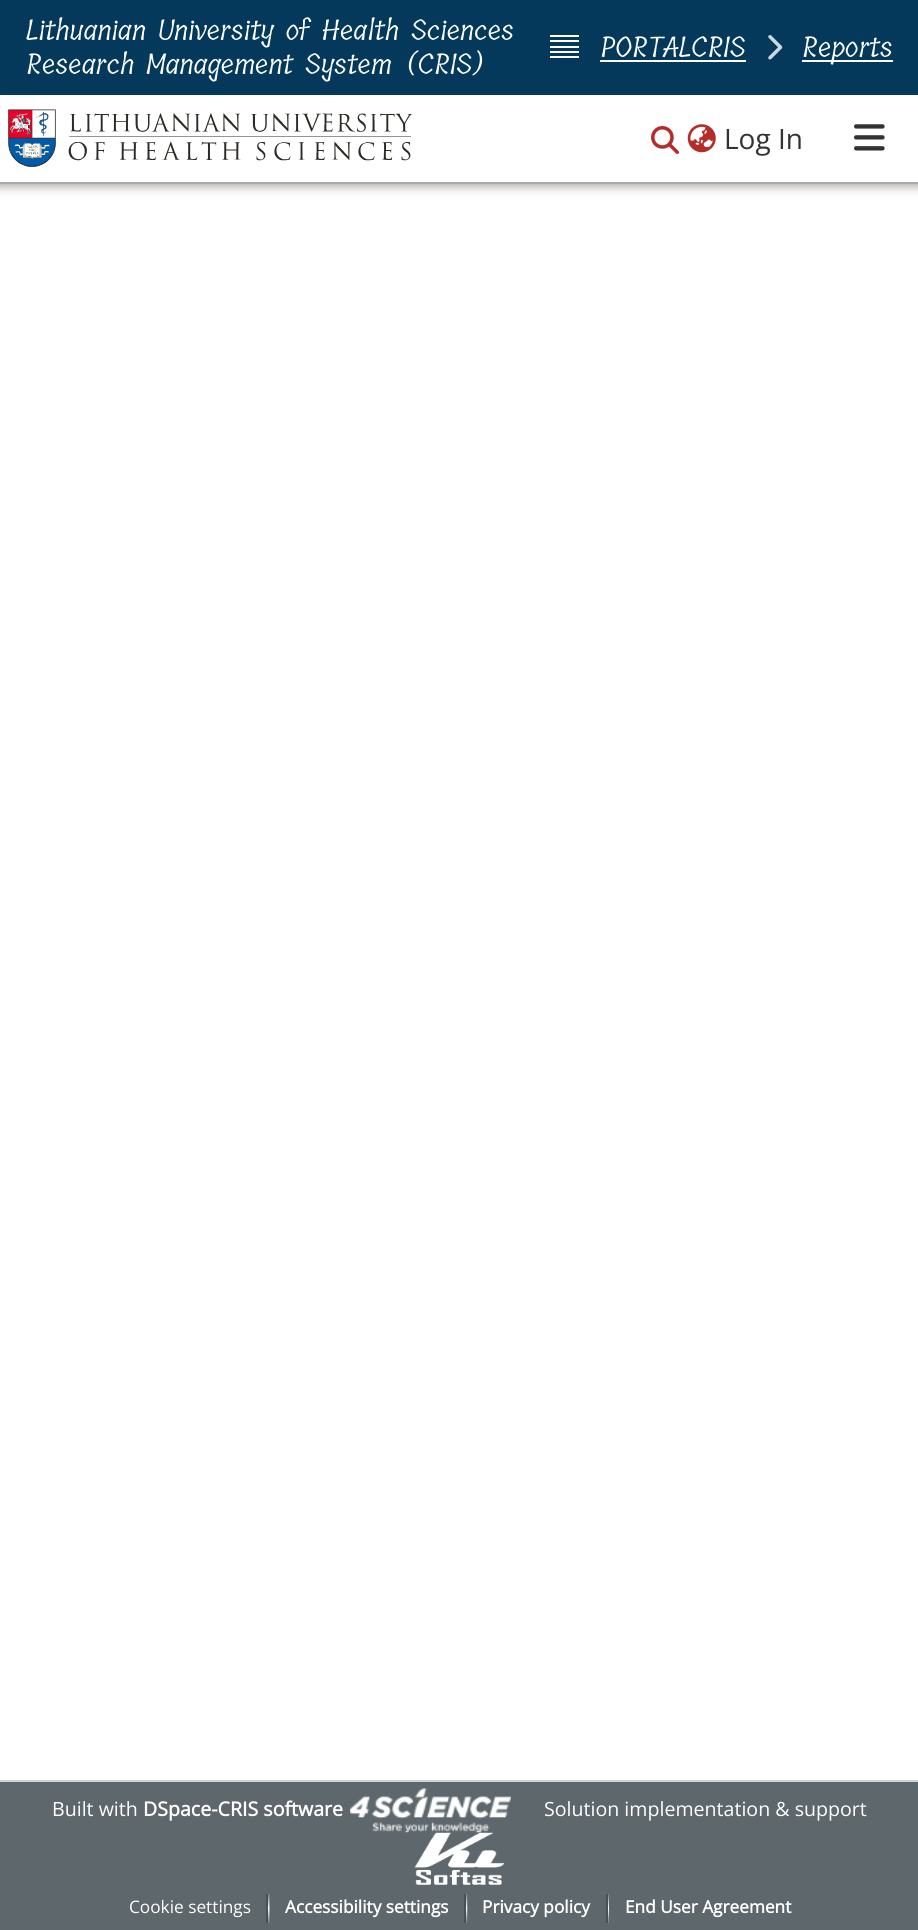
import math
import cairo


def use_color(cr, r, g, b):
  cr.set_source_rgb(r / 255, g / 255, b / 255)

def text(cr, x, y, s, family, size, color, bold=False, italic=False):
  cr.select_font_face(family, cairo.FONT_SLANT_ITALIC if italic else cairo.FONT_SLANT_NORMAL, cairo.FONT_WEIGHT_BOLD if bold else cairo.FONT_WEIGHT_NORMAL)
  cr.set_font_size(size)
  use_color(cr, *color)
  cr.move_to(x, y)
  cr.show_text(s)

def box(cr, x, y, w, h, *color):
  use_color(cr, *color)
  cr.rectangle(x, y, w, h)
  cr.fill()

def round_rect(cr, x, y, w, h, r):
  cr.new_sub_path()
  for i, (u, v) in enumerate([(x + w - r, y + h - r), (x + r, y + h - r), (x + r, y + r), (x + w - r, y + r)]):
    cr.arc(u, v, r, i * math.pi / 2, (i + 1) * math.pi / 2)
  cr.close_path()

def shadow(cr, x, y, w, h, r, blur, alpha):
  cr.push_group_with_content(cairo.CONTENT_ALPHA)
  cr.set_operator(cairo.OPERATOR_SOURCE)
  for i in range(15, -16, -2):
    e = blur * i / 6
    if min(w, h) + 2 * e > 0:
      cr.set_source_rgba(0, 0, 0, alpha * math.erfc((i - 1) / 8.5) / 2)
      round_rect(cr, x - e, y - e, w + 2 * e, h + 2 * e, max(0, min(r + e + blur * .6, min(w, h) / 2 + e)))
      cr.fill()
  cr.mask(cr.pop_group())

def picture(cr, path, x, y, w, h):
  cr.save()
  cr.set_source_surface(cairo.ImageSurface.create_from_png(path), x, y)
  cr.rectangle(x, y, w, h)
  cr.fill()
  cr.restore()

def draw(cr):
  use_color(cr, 255, 255, 255)
  cr.paint()
  cr.save()
  cr.set_fill_rule(cairo.FILL_RULE_EVEN_ODD)
  cr.new_path()
  cr.move_to(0, 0)
  cr.line_to(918, 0)
  cr.line_to(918, 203)
  cr.line_to(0, 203)
  cr.close_path()
  cr.move_to(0, 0)
  cr.line_to(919, 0)
  cr.line_to(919, 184)
  cr.line_to(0, 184)
  cr.close_path()
  cr.clip()
  use_color(cr, 104, 87, 68)
  shadow(cr, -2, 0, 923, 187, 0, 5, 0.5)
  cr.restore()
  cr.set_source_rgba(0.333, 0.333, 0.333, 0.5)
  cr.rectangle(0, 182, 918, 2)
  cr.fill()
  box(cr, 0, 0, 918, 95, 4, 57, 91)
  box(cr, 550, 35, 29, 2, 255, 255, 255)
  box(cr, 550, 40, 29, 2, 255, 255, 255)
  box(cr, 550, 46, 29, 2, 255, 255, 255)
  box(cr, 550, 51, 29, 2, 255, 255, 255)
  box(cr, 550, 56, 29, 2, 255, 255, 255)
  box(cr, 600, 60, 146, 2, 255, 255, 255)
  picture(cr, "img_01.png", 768, 35, 15, 25)
  box(cr, 802, 60, 91, 2, 255, 255, 255)
  picture(cr, "img_02.png", 8, 109, 405, 58)
  picture(cr, "img_03.png", 651, 126, 28, 28)
  picture(cr, "img_04.png", 687, 124, 29, 29)
  picture(cr, "img_05.png", 854, 124, 31, 27)
  box(cr, 0, 1782, 918, 148, 93, 103, 108)
  box(cr, 0, 1780, 918, 2, 206, 212, 218)
  picture(cr, "img_06.png", 350, 1788, 161, 45)
  picture(cr, "img_07.png", 414, 1832, 90, 53)
  picture(cr, "img_08.png", 268, 1893, 2, 31)
  box(cr, 266, 1894, 2, 29, 73, 80, 87)
  picture(cr, "img_09.png", 465, 1893, 3, 31)
  box(cr, 464, 1894, 2, 29, 73, 80, 87)
  picture(cr, "img_10.png", 607, 1893, 2, 31)
  box(cr, 606, 1894, 2, 29, 73, 80, 87)
  text(cr, 26, 40, "Lithuanian University of Health Sciences", "Tillana", 28, (255, 255, 255))
  text(cr, 26, 74, "Research Management System (CRIS)", "Tillana", 28, (255, 255, 255))
  text(cr, 600, 57, "PORTALCRIS", "Tillana", 28, (255, 255, 255))
  text(cr, 802, 57, "Reports", "Tillana", 28, (255, 255, 255))
  text(cr, 724, 149, "Log In", "Open Sans", 28, (51, 51, 51))
  text(cr, 52, 1816, "Built with", "Open Sans", 19.6, (255, 255, 255))
  text(cr, 143, 1816, "DSpace-CRIS software", "Open Sans", 19.6, (255, 255, 255), bold=True)
  text(cr, 544, 1816, "Solution implementation & support", "Open Sans", 19.6, (255, 255, 255))
  text(cr, 129, 1913, "Cookie settings", "Open Sans", 17.25, (255, 255, 255))
  text(cr, 285, 1913, "Accessibility settings", "Open Sans", 17.25, (255, 255, 255), bold=True)
  text(cr, 482, 1913, "Privacy policy", "Open Sans", 17.25, (255, 255, 255), bold=True)
  text(cr, 625, 1913, "End User Agreement", "Open Sans", 17.25, (255, 255, 255), bold=True)


surface = cairo.ImageSurface(cairo.FORMAT_RGB24, 918, 1930)
cr = cairo.Context(surface)
options = cairo.FontOptions()
options.set_hint_metrics(cairo.HINT_METRICS_OFF)
options.set_hint_style(cairo.HINT_STYLE_NONE)
cr.set_font_options(options)
cr.set_miter_limit(4)
draw(cr)
surface.write_to_png("out.png")
